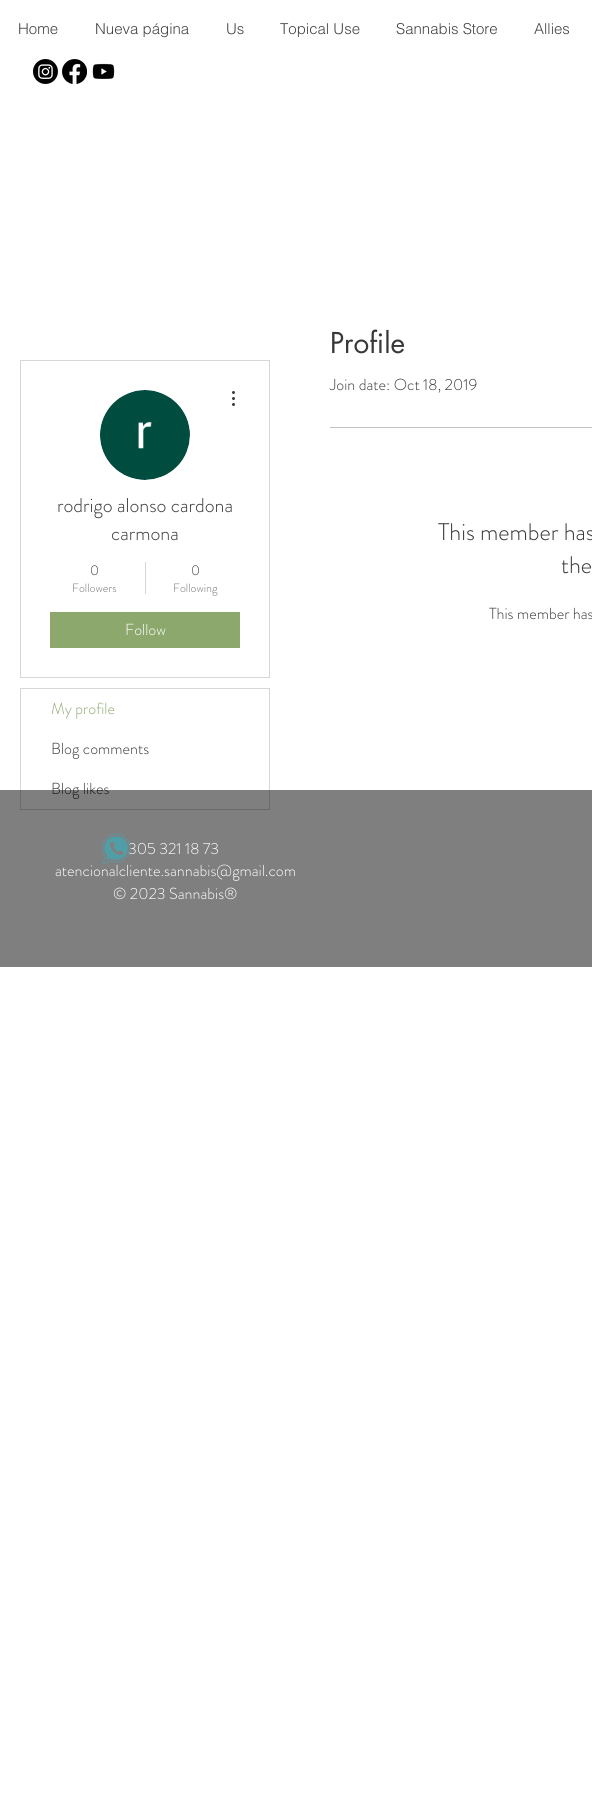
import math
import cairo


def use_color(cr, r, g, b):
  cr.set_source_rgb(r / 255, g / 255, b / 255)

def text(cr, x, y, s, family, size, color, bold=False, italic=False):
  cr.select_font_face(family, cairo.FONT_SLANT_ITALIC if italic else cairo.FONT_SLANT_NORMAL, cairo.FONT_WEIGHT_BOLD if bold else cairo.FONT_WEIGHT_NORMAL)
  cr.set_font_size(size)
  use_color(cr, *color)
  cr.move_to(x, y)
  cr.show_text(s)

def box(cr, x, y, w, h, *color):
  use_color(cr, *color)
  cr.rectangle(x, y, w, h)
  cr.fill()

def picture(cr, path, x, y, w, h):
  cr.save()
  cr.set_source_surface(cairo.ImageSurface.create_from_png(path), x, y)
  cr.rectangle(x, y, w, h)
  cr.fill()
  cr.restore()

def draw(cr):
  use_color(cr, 255, 255, 255)
  cr.paint()
  picture(cr, "img_01.png", 33, 59, 25, 25)
  picture(cr, "img_02.png", 62, 59, 25, 25)
  picture(cr, "img_03.png", 92, 63, 23, 16)
  cr.rectangle(20.5, 360.5, 249, 317)
  use_color(cr, 215, 215, 215)
  cr.set_line_width(1)
  cr.stroke()
  use_color(cr, 216, 216, 216)
  cr.arc(145, 435, 45, 0, 2 * math.pi)
  cr.fill()
  picture(cr, "img_04.png", 100, 390, 90, 90)
  picture(cr, "img_05.png", 232, 391, 3, 15)
  box(cr, 145, 562, 1, 32, 215, 215, 215)
  box(cr, 50, 612, 190, 36, 141, 168, 109)
  cr.rectangle(20.5, 688.5, 249, 121)
  use_color(cr, 215, 215, 215)
  cr.stroke()
  box(cr, 330, 427, 262, 1, 195, 195, 195)
  text(cr, 18, 34, "Home", "helvetica Light", 15, (68, 68, 68))
  text(cr, 95, 34, "Nueva página", "helvetica Light", 15, (68, 68, 68))
  text(cr, 226, 34, "Us", "helvetica Light", 15, (68, 68, 68))
  text(cr, 280, 34, "Topical Use", "helvetica Light", 15, (68, 68, 68))
  text(cr, 396, 34, "Sannabis Store", "helvetica Light", 15, (68, 68, 68))
  text(cr, 534, 34, "Allies", "helvetica Light", 15, (68, 68, 68))
  text(cr, 57, 512, "rodrigo alonso cardona", "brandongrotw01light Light", 20, (56, 56, 56))
  text(cr, 111, 540, "carmona", "brandongrotw01light Light", 20, (56, 56, 56))
  text(cr, 90, 575, "0", "brandongrotw01light Light", 14, (56, 56, 56))
  text(cr, 72, 592, "Followers", "brandongrotw01light Light", 12, (116, 116, 116))
  text(cr, 191, 575, "0", "brandongrotw01light Light", 14, (56, 56, 56))
  text(cr, 173, 592, "Following", "brandongrotw01light Light", 12, (116, 116, 116))
  text(cr, 125, 635, "Follow", "brandongrotw01light Light", 16, (255, 255, 255))
  text(cr, 51, 714, "My profile", "brandongrotw01light Light", 16, (141, 168, 109))
  text(cr, 51, 754, "Blog comments", "brandongrotw01light Light", 16, (56, 56, 56))
  text(cr, 51, 794, "Blog likes", "brandongrotw01light Light", 16, (56, 56, 56))
  text(cr, 330, 353, "Profile", "futura", 28, (56, 56, 56))
  text(cr, 330, 390, "Join date: Oct 18, 2019", "brandongrotw01light Light", 16, (56, 56, 56))
  text(cr, 438, 540, "This member has", "brandongrotw01light Light", 24, (56, 56, 56))
  text(cr, 561, 573, "the", "brandongrotw01light Light", 24, (56, 56, 56))
  text(cr, 489, 619, "This member has", "brandongrotw01light Light", 16, (56, 56, 56))
  cr.set_source_rgba(0, 0, 0, 0.5)
  cr.rectangle(0, 790, 592, 177)
  cr.fill()
  text(cr, 128, 854, "305 321 18 73", "brandongrotw01light Light", 16, (255, 255, 255))
  text(cr, 55, 876, "atencionalcliente.sannabis@gmail.com", "brandongrotw01light Light", 16, (255, 255, 255))
  picture(cr, "img_06.png", 101, 833, 30, 32)
  text(cr, 113, 899, "© 2023 Sannabis®", "brandongrotw01light Light", 16, (255, 255, 255))


surface = cairo.ImageSurface(cairo.FORMAT_RGB24, 592, 1817)
cr = cairo.Context(surface)
options = cairo.FontOptions()
options.set_hint_metrics(cairo.HINT_METRICS_OFF)
options.set_hint_style(cairo.HINT_STYLE_NONE)
cr.set_font_options(options)
cr.set_miter_limit(4)
draw(cr)
surface.write_to_png("out.png")
